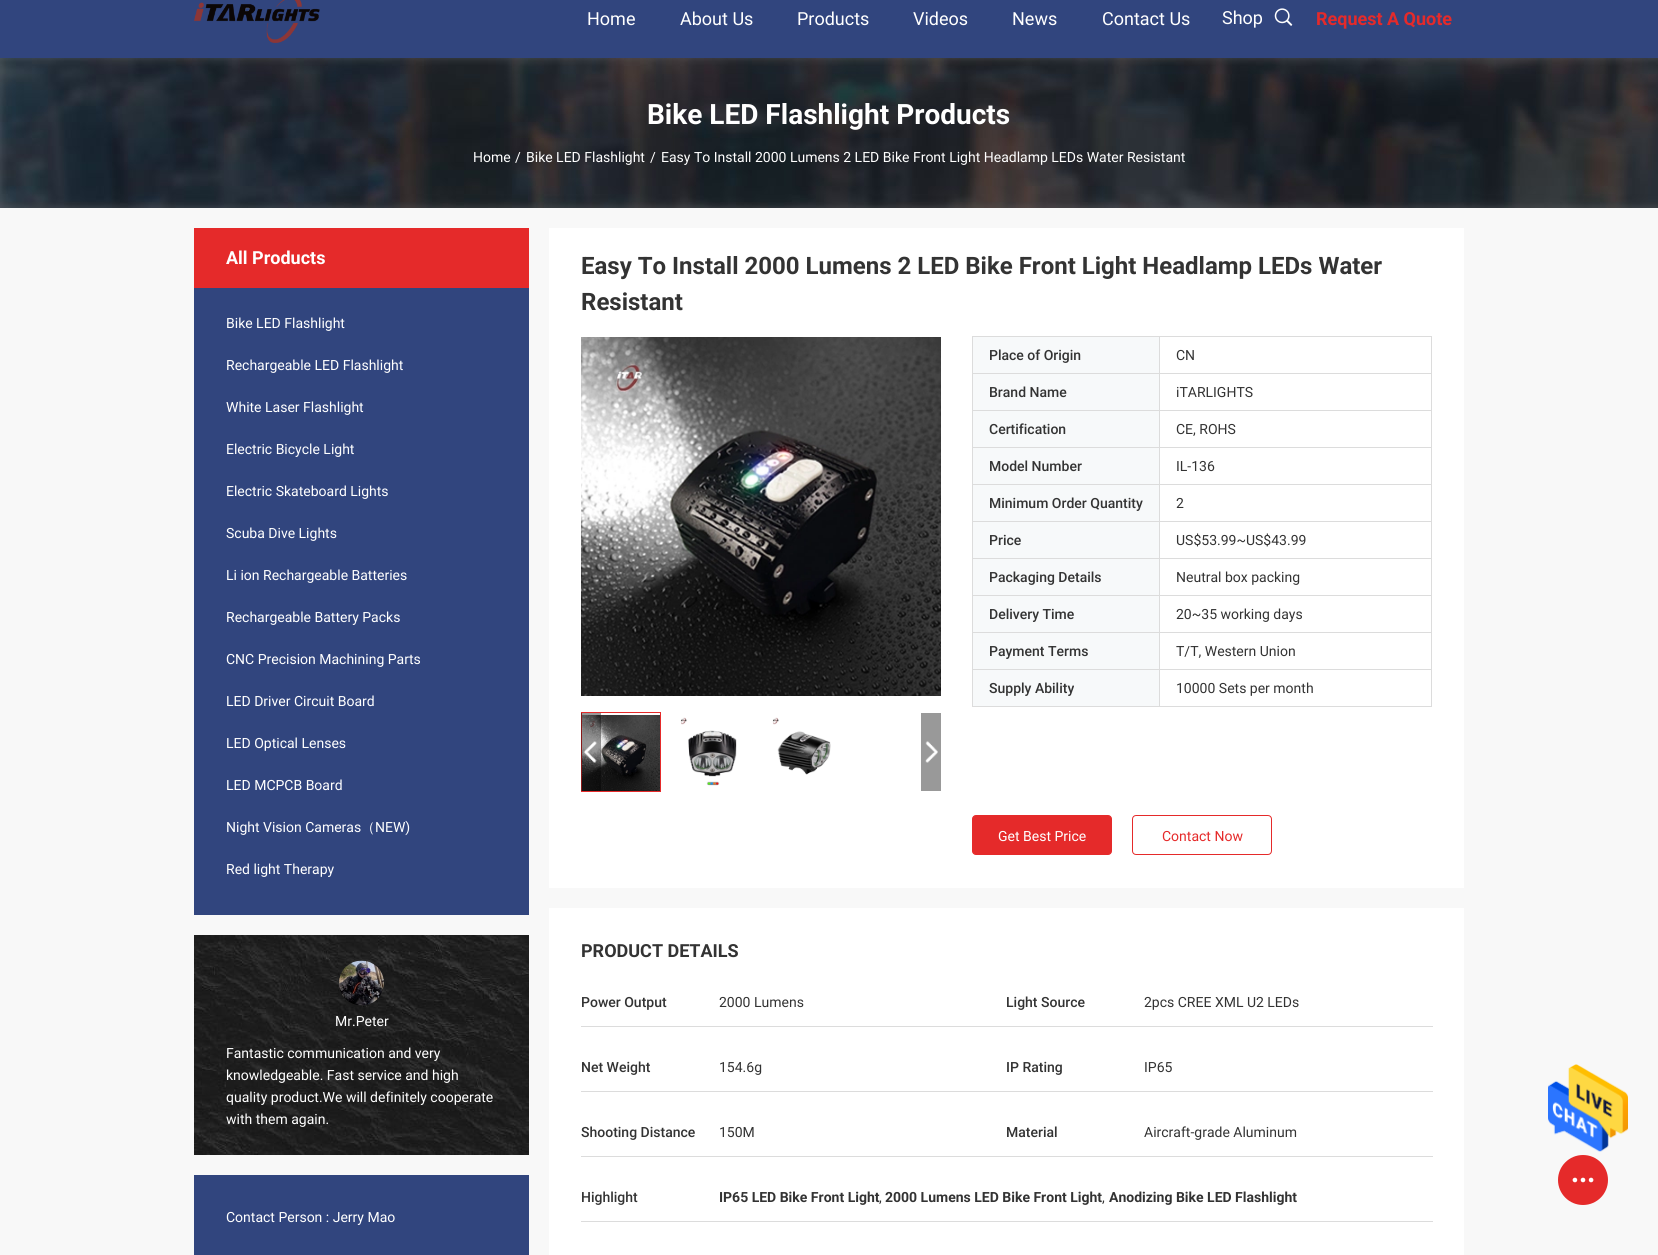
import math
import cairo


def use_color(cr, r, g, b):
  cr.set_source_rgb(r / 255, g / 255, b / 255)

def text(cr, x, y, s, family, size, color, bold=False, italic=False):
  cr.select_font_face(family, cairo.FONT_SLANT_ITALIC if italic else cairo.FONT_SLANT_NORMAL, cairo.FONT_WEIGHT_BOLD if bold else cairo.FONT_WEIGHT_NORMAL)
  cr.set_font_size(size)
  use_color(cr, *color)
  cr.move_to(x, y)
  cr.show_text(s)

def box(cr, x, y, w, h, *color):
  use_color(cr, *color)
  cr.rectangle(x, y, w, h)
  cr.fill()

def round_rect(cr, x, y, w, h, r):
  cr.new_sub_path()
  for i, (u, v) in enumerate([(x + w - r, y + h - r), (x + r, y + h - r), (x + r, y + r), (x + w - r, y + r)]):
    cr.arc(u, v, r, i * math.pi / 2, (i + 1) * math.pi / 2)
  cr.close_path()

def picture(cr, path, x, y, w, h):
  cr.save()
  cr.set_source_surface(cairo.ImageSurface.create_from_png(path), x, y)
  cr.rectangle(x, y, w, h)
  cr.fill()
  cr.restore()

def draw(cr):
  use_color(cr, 248, 248, 248)
  cr.paint()
  box(cr, 0, 0, 1658, 58, 49, 69, 126)
  picture(cr, "img_01.png", 194, 0, 126, 43)
  picture(cr, "img_02.png", 1274, 8, 19, 18)
  picture(cr, "img_03.png", 0, 58, 1658, 150)
  box(cr, 194, 228, 335, 60, 229, 42, 42)
  box(cr, 194, 288, 335, 627, 49, 69, 126)
  picture(cr, "img_04.png", 194, 935, 335, 220)
  picture(cr, "img_05.png", 339, 960, 45, 46)
  box(cr, 194, 1175, 335, 80, 49, 69, 126)
  box(cr, 549, 228, 915, 660, 255, 255, 255)
  picture(cr, "img_06.png", 581, 337, 360, 359)
  cr.rectangle(581.5, 712.5, 79, 79)
  use_color(cr, 229, 42, 42)
  cr.set_line_width(1)
  cr.stroke()
  picture(cr, "img_07.png", 582, 715, 78, 76)
  picture(cr, "img_08.png", 680, 717, 57, 69)
  picture(cr, "img_09.png", 772, 717, 59, 58)
  picture(cr, "img_10.png", 921, 713, 20, 78)
  picture(cr, "img_11.png", 581, 713, 20, 78)
  box(cr, 973, 337, 186, 36, 247, 249, 250)
  box(cr, 1159, 336, 273, 1, 220, 220, 220)
  box(cr, 1159, 373, 273, 1, 220, 220, 220)
  box(cr, 1159, 410, 273, 1, 220, 220, 220)
  box(cr, 1159, 447, 273, 1, 220, 220, 220)
  box(cr, 1159, 484, 273, 1, 220, 220, 220)
  box(cr, 1159, 521, 273, 1, 220, 220, 220)
  box(cr, 1159, 558, 273, 1, 220, 220, 220)
  box(cr, 1159, 595, 273, 1, 220, 220, 220)
  box(cr, 1159, 632, 273, 1, 220, 220, 220)
  box(cr, 1159, 669, 273, 1, 220, 220, 220)
  box(cr, 1431, 669, 1, 38, 220, 220, 220)
  box(cr, 1159, 706, 273, 1, 220, 220, 220)
  box(cr, 1159, 669, 1, 38, 220, 220, 220)
  box(cr, 972, 669, 188, 1, 220, 220, 220)
  box(cr, 1159, 632, 1, 38, 220, 220, 220)
  box(cr, 972, 632, 188, 1, 220, 220, 220)
  box(cr, 1159, 595, 1, 38, 220, 220, 220)
  box(cr, 972, 595, 188, 1, 220, 220, 220)
  box(cr, 1159, 558, 1, 38, 220, 220, 220)
  box(cr, 972, 558, 188, 1, 220, 220, 220)
  box(cr, 1159, 521, 1, 38, 220, 220, 220)
  box(cr, 972, 521, 188, 1, 220, 220, 220)
  box(cr, 1159, 484, 1, 38, 220, 220, 220)
  box(cr, 972, 484, 188, 1, 220, 220, 220)
  box(cr, 1159, 447, 1, 38, 220, 220, 220)
  box(cr, 972, 447, 188, 1, 220, 220, 220)
  box(cr, 1159, 410, 1, 38, 220, 220, 220)
  box(cr, 972, 410, 188, 1, 220, 220, 220)
  box(cr, 1159, 373, 1, 38, 220, 220, 220)
  box(cr, 972, 373, 188, 1, 220, 220, 220)
  box(cr, 1159, 336, 1, 38, 220, 220, 220)
  box(cr, 972, 336, 188, 1, 220, 220, 220)
  box(cr, 972, 706, 188, 1, 220, 220, 220)
  box(cr, 972, 669, 1, 38, 220, 220, 220)
  box(cr, 972, 632, 1, 38, 220, 220, 220)
  box(cr, 972, 595, 1, 38, 220, 220, 220)
  box(cr, 972, 558, 1, 38, 220, 220, 220)
  box(cr, 972, 521, 1, 38, 220, 220, 220)
  box(cr, 972, 484, 1, 38, 220, 220, 220)
  box(cr, 972, 447, 1, 38, 220, 220, 220)
  box(cr, 972, 410, 1, 38, 220, 220, 220)
  box(cr, 972, 373, 1, 38, 220, 220, 220)
  box(cr, 972, 336, 1, 38, 220, 220, 220)
  box(cr, 1431, 632, 1, 38, 220, 220, 220)
  box(cr, 1431, 595, 1, 38, 220, 220, 220)
  box(cr, 1431, 558, 1, 38, 220, 220, 220)
  box(cr, 1431, 521, 1, 38, 220, 220, 220)
  box(cr, 1431, 484, 1, 38, 220, 220, 220)
  box(cr, 1431, 447, 1, 38, 220, 220, 220)
  box(cr, 1431, 410, 1, 38, 220, 220, 220)
  box(cr, 1431, 373, 1, 38, 220, 220, 220)
  box(cr, 1431, 336, 1, 38, 220, 220, 220)
  box(cr, 973, 374, 186, 36, 247, 249, 250)
  box(cr, 973, 411, 186, 36, 247, 249, 250)
  box(cr, 973, 448, 186, 36, 247, 249, 250)
  box(cr, 973, 485, 186, 36, 247, 249, 250)
  box(cr, 973, 522, 186, 36, 247, 249, 250)
  box(cr, 973, 559, 186, 36, 247, 249, 250)
  box(cr, 973, 596, 186, 36, 247, 249, 250)
  box(cr, 973, 633, 186, 36, 247, 249, 250)
  box(cr, 973, 670, 186, 36, 247, 249, 250)
  use_color(cr, 229, 42, 42)
  round_rect(cr, 972.5, 815.5, 139, 39, 3.5)
  cr.fill_preserve()
  cr.stroke()
  round_rect(cr, 1132.5, 815.5, 139, 39, 3.5)
  cr.stroke()
  box(cr, 549, 908, 915, 347, 255, 255, 255)
  box(cr, 581, 1026, 852, 1, 220, 220, 220)
  box(cr, 581, 1091, 852, 1, 220, 220, 220)
  box(cr, 581, 1156, 852, 1, 220, 220, 220)
  box(cr, 581, 1221, 852, 1, 220, 220, 220)
  picture(cr, "img_12.png", 1548, 1064, 80, 88)
  use_color(cr, 229, 42, 42)
  cr.arc(1583, 1180, 25, 0, 2 * math.pi)
  cr.fill()
  picture(cr, "img_13.png", 1572, 1177, 22, 6)
  text(cr, 587, 25, "Home", "Roboto", 18, (255, 255, 255))
  text(cr, 680, 25, "About Us", "Roboto", 18, (255, 255, 255))
  text(cr, 797, 25, "Products", "Roboto", 18, (255, 255, 255))
  text(cr, 913, 25, "Videos", "Roboto", 18, (255, 255, 255))
  text(cr, 1012, 25, "News", "Roboto", 18, (255, 255, 255))
  text(cr, 1102, 25, "Contact Us", "Roboto", 18, (255, 255, 255))
  text(cr, 1222, 24, "Shop", "Roboto", 18, (255, 255, 255))
  text(cr, 1316, 25, "Request A Quote", "Roboto", 18, (229, 42, 42), bold=True)
  text(cr, 647, 124, "Bike LED Flashlight Products", "Roboto", 28, (255, 255, 255), bold=True)
  text(cr, 473, 162, "Home", "Roboto", 14, (255, 255, 255))
  text(cr, 515, 162, "/", "Roboto", 14, (255, 255, 255))
  text(cr, 526, 162, "Bike LED Flashlight", "Roboto", 14, (255, 255, 255))
  text(cr, 650, 162, "/", "Roboto", 14, (255, 255, 255))
  text(cr, 661, 162, "Easy To Install 2000 Lumens 2 LED Bike Front Light Headlamp LEDs Water Resistant", "Roboto", 14, (255, 255, 255))
  text(cr, 226, 264, "All Products", "Roboto", 18, (255, 255, 255), bold=True)
  text(cr, 226, 328, "Bike LED Flashlight", "Roboto", 14, (255, 255, 255))
  text(cr, 226, 370, "Rechargeable LED Flashlight", "Roboto", 14, (255, 255, 255))
  text(cr, 226, 412, "White Laser Flashlight", "Roboto", 14, (255, 255, 255))
  text(cr, 226, 454, "Electric Bicycle Light", "Roboto", 14, (255, 255, 255))
  text(cr, 226, 496, "Electric Skateboard Lights", "Roboto", 14, (255, 255, 255))
  text(cr, 226, 538, "Scuba Dive Lights", "Roboto", 14, (255, 255, 255))
  text(cr, 226, 580, "Li ion Rechargeable Batteries", "Roboto", 14, (255, 255, 255))
  text(cr, 226, 622, "Rechargeable Battery Packs", "Roboto", 14, (255, 255, 255))
  text(cr, 226, 664, "CNC Precision Machining Parts", "Roboto", 14, (255, 255, 255))
  text(cr, 226, 706, "LED Driver Circuit Board", "Roboto", 14, (255, 255, 255))
  text(cr, 226, 748, "LED Optical Lenses", "Roboto", 14, (255, 255, 255))
  text(cr, 226, 790, "LED MCPCB Board", "Roboto", 14, (255, 255, 255))
  text(cr, 226, 832, "Night Vision Cameras", "Roboto", 14, (255, 255, 255))
  text(cr, 361, 832, "（", "WenQuanYi Zen Hei Medium", 14, (255, 255, 255))
  text(cr, 375, 832, "NEW)", "Roboto", 14, (255, 255, 255))
  text(cr, 226, 874, "Red light Therapy", "Roboto", 14, (255, 255, 255))
  text(cr, 335, 1026, "Mr.Peter", "Roboto", 14, (255, 255, 255))
  text(cr, 226, 1058, "Fantastic communication and very", "Roboto", 14, (255, 255, 255))
  text(cr, 226, 1080, "knowledgeable. Fast service and high", "Roboto", 14, (255, 255, 255))
  text(cr, 226, 1102, "quality product.We will definitely cooperate", "Roboto", 14, (255, 255, 255))
  text(cr, 226, 1124, "with them again.", "Roboto", 14, (255, 255, 255))
  text(cr, 226, 1222, "Contact Person : Jerry Mao", "Roboto", 14, (255, 255, 255))
  text(cr, 581, 274, "Easy To Install 2000 Lumens 2 LED Bike Front Light Headlamp LEDs Water", "Roboto", 24, (51, 51, 51), bold=True)
  text(cr, 581, 310, "Resistant", "Roboto", 24, (51, 51, 51), bold=True)
  text(cr, 989, 360, "Place of Origin", "Roboto Medium", 14, (51, 51, 51))
  text(cr, 1176, 360, "CN", "Roboto", 14, (51, 51, 51))
  text(cr, 989, 397, "Brand Name", "Roboto Medium", 14, (51, 51, 51))
  text(cr, 1176, 397, "iTARLIGHTS", "Roboto", 14, (51, 51, 51))
  text(cr, 989, 434, "Certification", "Roboto Medium", 14, (51, 51, 51))
  text(cr, 1176, 434, "CE, ROHS", "Roboto", 14, (51, 51, 51))
  text(cr, 989, 471, "Model Number", "Roboto Medium", 14, (51, 51, 51))
  text(cr, 1176, 471, "IL-136", "Roboto", 14, (51, 51, 51))
  text(cr, 989, 508, "Minimum Order Quantity", "Roboto Medium", 14, (51, 51, 51))
  text(cr, 1176, 508, "2", "Roboto", 14, (51, 51, 51))
  text(cr, 989, 545, "Price", "Roboto Medium", 14, (51, 51, 51))
  text(cr, 1176, 545, "US$53.99~US$43.99", "Roboto", 14, (51, 51, 51))
  text(cr, 989, 582, "Packaging Details", "Roboto Medium", 14, (51, 51, 51))
  text(cr, 1176, 582, "Neutral box packing", "Roboto", 14, (51, 51, 51))
  text(cr, 989, 619, "Delivery Time", "Roboto Medium", 14, (51, 51, 51))
  text(cr, 1176, 619, "20~35 working days", "Roboto", 14, (51, 51, 51))
  text(cr, 989, 656, "Payment Terms", "Roboto Medium", 14, (51, 51, 51))
  text(cr, 1176, 656, "T/T, Western Union", "Roboto", 14, (51, 51, 51))
  text(cr, 989, 693, "Supply Ability", "Roboto Medium", 14, (51, 51, 51))
  text(cr, 1176, 693, "10000 Sets per month", "Roboto", 14, (51, 51, 51))
  text(cr, 998, 841, "Get Best Price", "Roboto", 14, (255, 255, 255))
  text(cr, 1162, 841, "Contact Now", "Roboto", 14, (229, 42, 42))
  text(cr, 581, 957, "PRODUCT DETAILS", "Roboto", 18, (51, 51, 51), bold=True)
  text(cr, 581, 1007, "Power Output", "Roboto Medium", 14, (51, 51, 51))
  text(cr, 719, 1007, "2000 Lumens", "Roboto", 14, (51, 51, 51))
  text(cr, 1006, 1007, "Light Source", "Roboto Medium", 14, (51, 51, 51))
  text(cr, 1144, 1007, "2pcs CREE XML U2 LEDs", "Roboto", 14, (51, 51, 51))
  text(cr, 581, 1072, "Net Weight", "Roboto Medium", 14, (51, 51, 51))
  text(cr, 719, 1072, "154.6g", "Roboto", 14, (51, 51, 51))
  text(cr, 1006, 1072, "IP Rating", "Roboto Medium", 14, (51, 51, 51))
  text(cr, 1144, 1072, "IP65", "Roboto", 14, (51, 51, 51))
  text(cr, 581, 1137, "Shooting Distance", "Roboto Medium", 14, (51, 51, 51))
  text(cr, 719, 1137, "150M", "Roboto", 14, (51, 51, 51))
  text(cr, 1006, 1137, "Material", "Roboto Medium", 14, (51, 51, 51))
  text(cr, 1144, 1137, "Aircraft-grade Aluminum", "Roboto", 14, (51, 51, 51))
  text(cr, 581, 1202, "Highlight", "Roboto Medium", 14, (51, 51, 51))
  text(cr, 719, 1202, "IP65 LED Bike Front Light", "Roboto", 14, (51, 51, 51), bold=True)
  text(cr, 879, 1202, ",", "Roboto", 14, (51, 51, 51))
  text(cr, 885, 1202, "2000 Lumens LED Bike Front Light", "Roboto", 14, (51, 51, 51), bold=True)
  text(cr, 1102, 1202, ",", "Roboto", 14, (51, 51, 51))
  text(cr, 1109, 1202, "Anodizing Bike LED Flashlight", "Roboto", 14, (51, 51, 51), bold=True)


surface = cairo.ImageSurface(cairo.FORMAT_RGB24, 1658, 1255)
cr = cairo.Context(surface)
options = cairo.FontOptions()
options.set_hint_metrics(cairo.HINT_METRICS_OFF)
options.set_hint_style(cairo.HINT_STYLE_NONE)
cr.set_font_options(options)
cr.set_miter_limit(4)
draw(cr)
surface.write_to_png("out.png")
